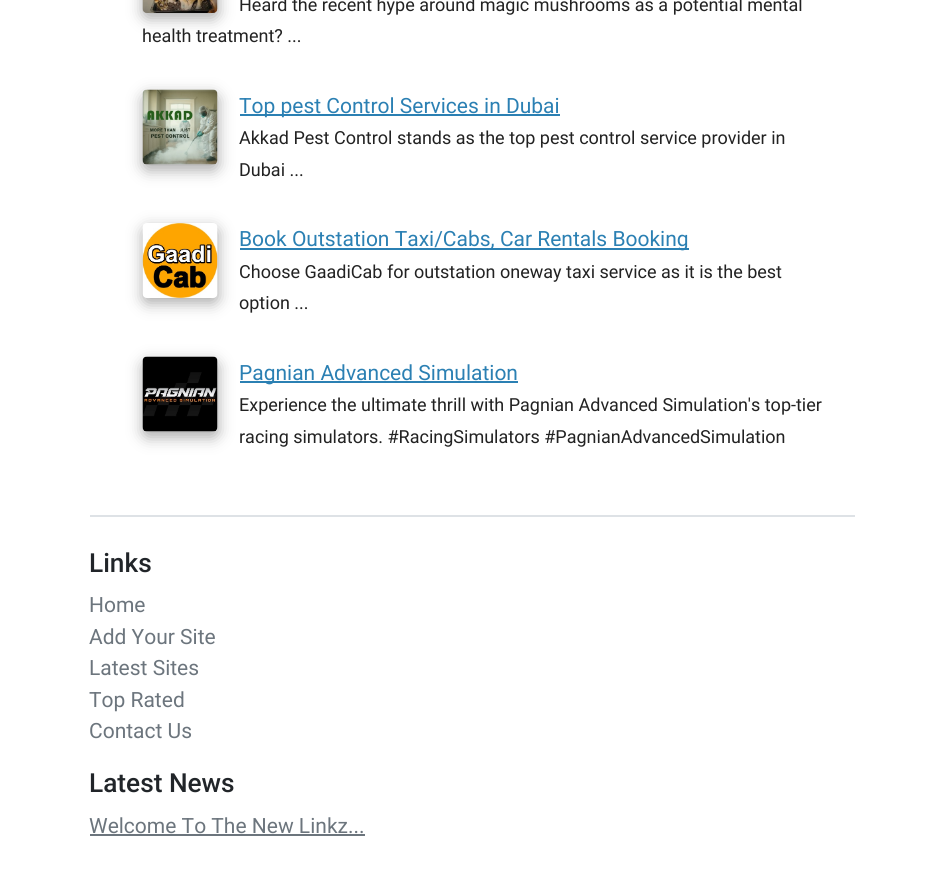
import math
import cairo


def use_color(cr, r, g, b):
  cr.set_source_rgb(r / 255, g / 255, b / 255)

def text(cr, x, y, s, family, size, color, bold=False, italic=False):
  cr.select_font_face(family, cairo.FONT_SLANT_ITALIC if italic else cairo.FONT_SLANT_NORMAL, cairo.FONT_WEIGHT_BOLD if bold else cairo.FONT_WEIGHT_NORMAL)
  cr.set_font_size(size)
  use_color(cr, *color)
  cr.move_to(x, y)
  cr.show_text(s)

def box(cr, x, y, w, h, *color):
  use_color(cr, *color)
  cr.rectangle(x, y, w, h)
  cr.fill()

def round_rect(cr, x, y, w, h, r):
  cr.new_sub_path()
  for i, (u, v) in enumerate([(x + w - r, y + h - r), (x + r, y + h - r), (x + r, y + r), (x + w - r, y + r)]):
    cr.arc(u, v, r, i * math.pi / 2, (i + 1) * math.pi / 2)
  cr.close_path()

def shadow(cr, x, y, w, h, r, blur, alpha):
  cr.push_group_with_content(cairo.CONTENT_ALPHA)
  cr.set_operator(cairo.OPERATOR_SOURCE)
  for i in range(15, -16, -2):
    e = blur * i / 6
    if min(w, h) + 2 * e > 0:
      cr.set_source_rgba(0, 0, 0, alpha * math.erfc((i - 1) / 8.5) / 2)
      round_rect(cr, x - e, y - e, w + 2 * e, h + 2 * e, max(0, min(r + e + blur * .6, min(w, h) / 2 + e)))
      cr.fill()
  cr.mask(cr.pop_group())

def picture(cr, path, x, y, w, h):
  cr.save()
  cr.set_source_surface(cairo.ImageSurface.create_from_png(path), x, y)
  cr.rectangle(x, y, w, h)
  cr.fill()
  cr.restore()

def draw(cr):
  use_color(cr, 255, 255, 255)
  cr.paint()
  use_color(cr, 170, 170, 170)
  shadow(cr, 143, -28, 75, 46, 5, 7.5, 1)
  picture(cr, "img_01.png", 142, 0, 76, 13)
  shadow(cr, 143, 95, 75, 75, 5, 7.5, 1)
  picture(cr, "img_02.png", 142, 89, 76, 76)
  box(cr, 240, 114, 320, 2, 43, 128, 179)
  use_color(cr, 170, 170, 170)
  shadow(cr, 143, 228, 75, 75, 5, 7.5, 1)
  picture(cr, "img_03.png", 142, 223, 76, 75)
  box(cr, 240, 248, 449, 2, 43, 128, 179)
  use_color(cr, 170, 170, 170)
  shadow(cr, 143, 362, 75, 75, 5, 7.5, 1)
  picture(cr, "img_04.png", 142, 356, 76, 76)
  box(cr, 240, 381, 278, 2, 43, 128, 179)
  box(cr, 90, 515, 765, 2, 222, 226, 230)
  box(cr, 90, 834, 275, 2, 108, 117, 125)
  text(cr, 239, 11, "Heard the recent hype around magic mushrooms as a potential mental", "Roboto", 18, (34, 34, 34))
  text(cr, 142, 42, "health treatment? ...", "Roboto", 18, (34, 34, 34))
  text(cr, 239, 113, "Top pest Control Services in Dubai", "Roboto", 21, (43, 128, 179))
  text(cr, 239, 144, "Akkad Pest Control stands as the top pest control service provider in", "Roboto", 18, (34, 34, 34))
  text(cr, 239, 176, "Dubai ...", "Roboto", 18, (34, 34, 34))
  text(cr, 239, 246, "Book Outstation Taxi/Cabs, Car Rentals Booking", "Roboto", 21, (43, 128, 179))
  text(cr, 239, 278, "Choose GaadiCab for outstation oneway taxi service as it is the best", "Roboto", 18, (34, 34, 34))
  text(cr, 239, 309, "option ...", "Roboto", 18, (34, 34, 34))
  text(cr, 239, 380, "Pagnian Advanced Simulation", "Roboto", 21, (43, 128, 179))
  text(cr, 239, 411, "Experience the ultimate thrill with Pagnian Advanced Simulation's top-tier", "Roboto", 18, (34, 34, 34))
  text(cr, 239, 443, "racing simulators. #RacingSimulators #PagnianAdvancedSimulation", "Roboto", 18, (34, 34, 34))
  text(cr, 89, 572, "Links", "Roboto Medium", 26.25, (33, 37, 41))
  text(cr, 89, 612, "Home", "Roboto", 21, (108, 117, 125))
  text(cr, 89, 644, "Add Your Site", "Roboto", 21, (108, 117, 125))
  text(cr, 89, 675, "Latest Sites", "Roboto", 21, (108, 117, 125))
  text(cr, 89, 707, "Top Rated", "Roboto", 21, (108, 117, 125))
  text(cr, 89, 738, "Contact Us", "Roboto", 21, (108, 117, 125))
  text(cr, 89, 792, "Latest News", "Roboto Medium", 26.25, (33, 37, 41))
  text(cr, 89, 833, "Welcome To The New Linkz...", "Roboto", 21, (108, 117, 125))


surface = cairo.ImageSurface(cairo.FORMAT_RGB24, 943, 870)
cr = cairo.Context(surface)
options = cairo.FontOptions()
options.set_hint_metrics(cairo.HINT_METRICS_OFF)
options.set_hint_style(cairo.HINT_STYLE_NONE)
cr.set_font_options(options)
cr.set_miter_limit(4)
draw(cr)
surface.write_to_png("out.png")
